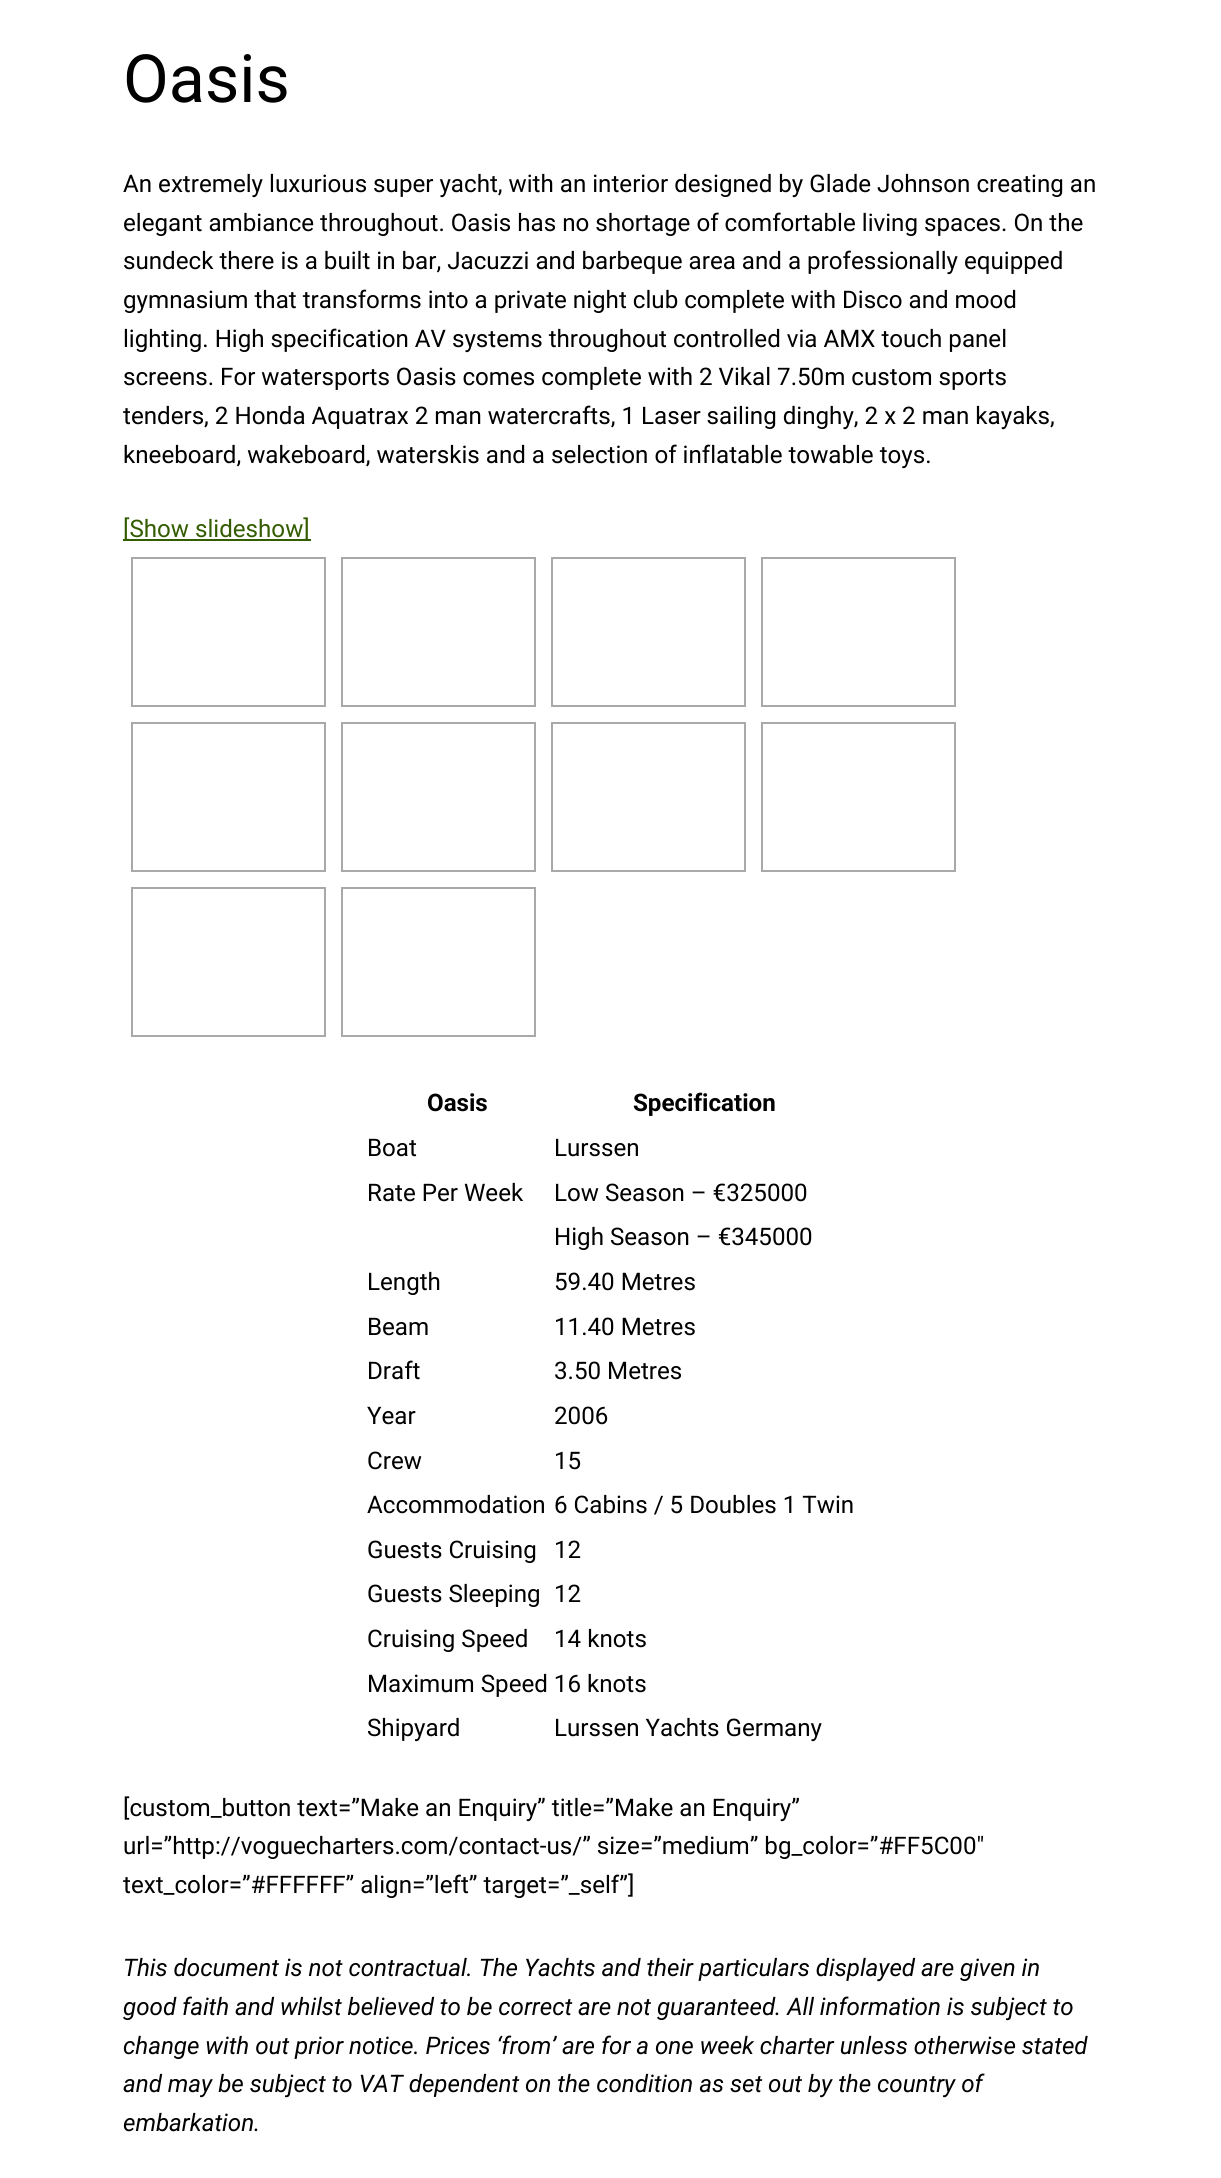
import math
import cairo


def use_color(cr, r, g, b):
  cr.set_source_rgb(r / 255, g / 255, b / 255)

def text(cr, x, y, s, family, size, color, bold=False, italic=False):
  cr.select_font_face(family, cairo.FONT_SLANT_ITALIC if italic else cairo.FONT_SLANT_NORMAL, cairo.FONT_WEIGHT_BOLD if bold else cairo.FONT_WEIGHT_NORMAL)
  cr.set_font_size(size)
  use_color(cr, *color)
  cr.move_to(x, y)
  cr.show_text(s)

def box(cr, x, y, w, h, *color):
  use_color(cr, *color)
  cr.rectangle(x, y, w, h)
  cr.fill()

def draw(cr):
  use_color(cr, 255, 255, 255)
  cr.paint()
  box(cr, 123, 539, 188, 2, 52, 92, 0)
  cr.rectangle(132, 558, 193, 148)
  use_color(cr, 169, 169, 169)
  cr.stroke()
  cr.rectangle(342, 558, 193, 148)
  cr.stroke()
  cr.rectangle(552, 558, 193, 148)
  cr.stroke()
  cr.rectangle(762, 558, 193, 148)
  cr.stroke()
  cr.rectangle(132, 723, 193, 148)
  cr.stroke()
  cr.rectangle(342, 723, 193, 148)
  cr.stroke()
  cr.rectangle(552, 723, 193, 148)
  cr.stroke()
  cr.rectangle(762, 723, 193, 148)
  cr.stroke()
  cr.rectangle(132, 888, 193, 148)
  cr.stroke()
  cr.rectangle(342, 888, 193, 148)
  cr.stroke()
  text(cr, 123, 102, "Oasis", "Roboto", 66.5, (0, 0, 0))
  text(cr, 123, 192, "An extremely luxurious super yacht, with an interior designed by Glade Johnson creating an", "Roboto", 24.15, (0, 0, 0))
  text(cr, 123, 231, "elegant ambiance throughout. Oasis has no shortage of comfortable living spaces. On the", "Roboto", 24.15, (0, 0, 0))
  text(cr, 123, 269, "sundeck there is a built in bar, Jacuzzi and barbeque area and a professionally equipped", "Roboto", 24.15, (0, 0, 0))
  text(cr, 123, 308, "gymnasium that transforms into a private night club complete with Disco and mood", "Roboto", 24.15, (0, 0, 0))
  text(cr, 123, 347, "lighting. High specification AV systems throughout controlled via AMX touch panel", "Roboto", 24.15, (0, 0, 0))
  text(cr, 123, 385, "screens. For watersports Oasis comes complete with 2 Vikal 7.50m custom sports", "Roboto", 24.15, (0, 0, 0))
  text(cr, 123, 424, "tenders, 2 Honda Aquatrax 2 man watercrafts, 1 Laser sailing dinghy, 2 x 2 man kayaks,", "Roboto", 24.15, (0, 0, 0))
  text(cr, 123, 463, "kneeboard, wakeboard, waterskis and a selection of inflatable towable toys.", "Roboto", 24.15, (0, 0, 0))
  text(cr, 123, 537, "[Show slideshow]", "Roboto", 24.15, (52, 92, 0))
  text(cr, 427, 1111, "Oasis", "Roboto", 24.15, (0, 0, 0), bold=True)
  text(cr, 633, 1111, "Specification", "Roboto", 24.15, (0, 0, 0), bold=True)
  text(cr, 367, 1156, "Boat", "Roboto", 24.15, (0, 0, 0))
  text(cr, 554, 1156, "Lurssen", "Roboto", 24.15, (0, 0, 0))
  text(cr, 367, 1201, "Rate Per Week", "Roboto", 24.15, (0, 0, 0))
  text(cr, 554, 1201, "Low Season – €325000", "Roboto", 24.15, (0, 0, 0))
  text(cr, 554, 1245, "High Season – €345000", "Roboto", 24.15, (0, 0, 0))
  text(cr, 367, 1290, "Length", "Roboto", 24.15, (0, 0, 0))
  text(cr, 554, 1290, "59.40 Metres", "Roboto", 24.15, (0, 0, 0))
  text(cr, 367, 1335, "Beam", "Roboto", 24.15, (0, 0, 0))
  text(cr, 554, 1335, "11.40 Metres", "Roboto", 24.15, (0, 0, 0))
  text(cr, 367, 1379, "Draft", "Roboto", 24.15, (0, 0, 0))
  text(cr, 554, 1379, "3.50 Metres", "Roboto", 24.15, (0, 0, 0))
  text(cr, 367, 1424, "Year", "Roboto", 24.15, (0, 0, 0))
  text(cr, 554, 1424, "2006", "Roboto", 24.15, (0, 0, 0))
  text(cr, 367, 1469, "Crew", "Roboto", 24.15, (0, 0, 0))
  text(cr, 554, 1469, "15", "Roboto", 24.15, (0, 0, 0))
  text(cr, 367, 1513, "Accommodation", "Roboto", 24.15, (0, 0, 0))
  text(cr, 554, 1513, "6 Cabins / 5 Doubles 1 Twin", "Roboto", 24.15, (0, 0, 0))
  text(cr, 367, 1558, "Guests Cruising", "Roboto", 24.15, (0, 0, 0))
  text(cr, 554, 1558, "12", "Roboto", 24.15, (0, 0, 0))
  text(cr, 367, 1602, "Guests Sleeping", "Roboto", 24.15, (0, 0, 0))
  text(cr, 554, 1602, "12", "Roboto", 24.15, (0, 0, 0))
  text(cr, 367, 1647, "Cruising Speed", "Roboto", 24.15, (0, 0, 0))
  text(cr, 554, 1647, "14 knots", "Roboto", 24.15, (0, 0, 0))
  text(cr, 367, 1692, "Maximum Speed 16 knots", "Roboto", 24.15, (0, 0, 0))
  text(cr, 367, 1736, "Shipyard", "Roboto", 24.15, (0, 0, 0))
  text(cr, 554, 1736, "Lurssen Yachts Germany", "Roboto", 24.15, (0, 0, 0))
  text(cr, 123, 1816, "[custom_button text=”Make an Enquiry” title=”Make an Enquiry”", "Roboto", 24.15, (0, 0, 0))
  text(cr, 123, 1854, "url=”http://voguecharters.com/contact-us/” size=”medium” bg_color=”#FF5C00″", "Roboto", 24.15, (0, 0, 0))
  text(cr, 123, 1893, "text_color=”#FFFFFF” align=”left” target=”_self”]", "Roboto", 24.15, (0, 0, 0))
  text(cr, 123, 1976, "This document is not contractual. The Yachts and their particulars displayed are given in", "Roboto", 24.15, (0, 0, 0), italic=True)
  text(cr, 123, 2015, "good faith and whilst believed to be correct are not guaranteed. All information is subject to", "Roboto", 24.15, (0, 0, 0), italic=True)
  text(cr, 123, 2054, "change with out prior notice. Prices ‘from’ are for a one week charter unless otherwise stated", "Roboto", 24.15, (0, 0, 0), italic=True)
  text(cr, 123, 2092, "and may be subject to VAT dependent on the condition as set out by the country of", "Roboto", 24.15, (0, 0, 0), italic=True)
  text(cr, 123, 2131, "embarkation.", "Roboto", 24.15, (0, 0, 0), italic=True)


surface = cairo.ImageSurface(cairo.FORMAT_RGB24, 1221, 2178)
cr = cairo.Context(surface)
options = cairo.FontOptions()
options.set_hint_metrics(cairo.HINT_METRICS_OFF)
options.set_hint_style(cairo.HINT_STYLE_NONE)
cr.set_font_options(options)
cr.set_miter_limit(4)
draw(cr)
surface.write_to_png("out.png")
